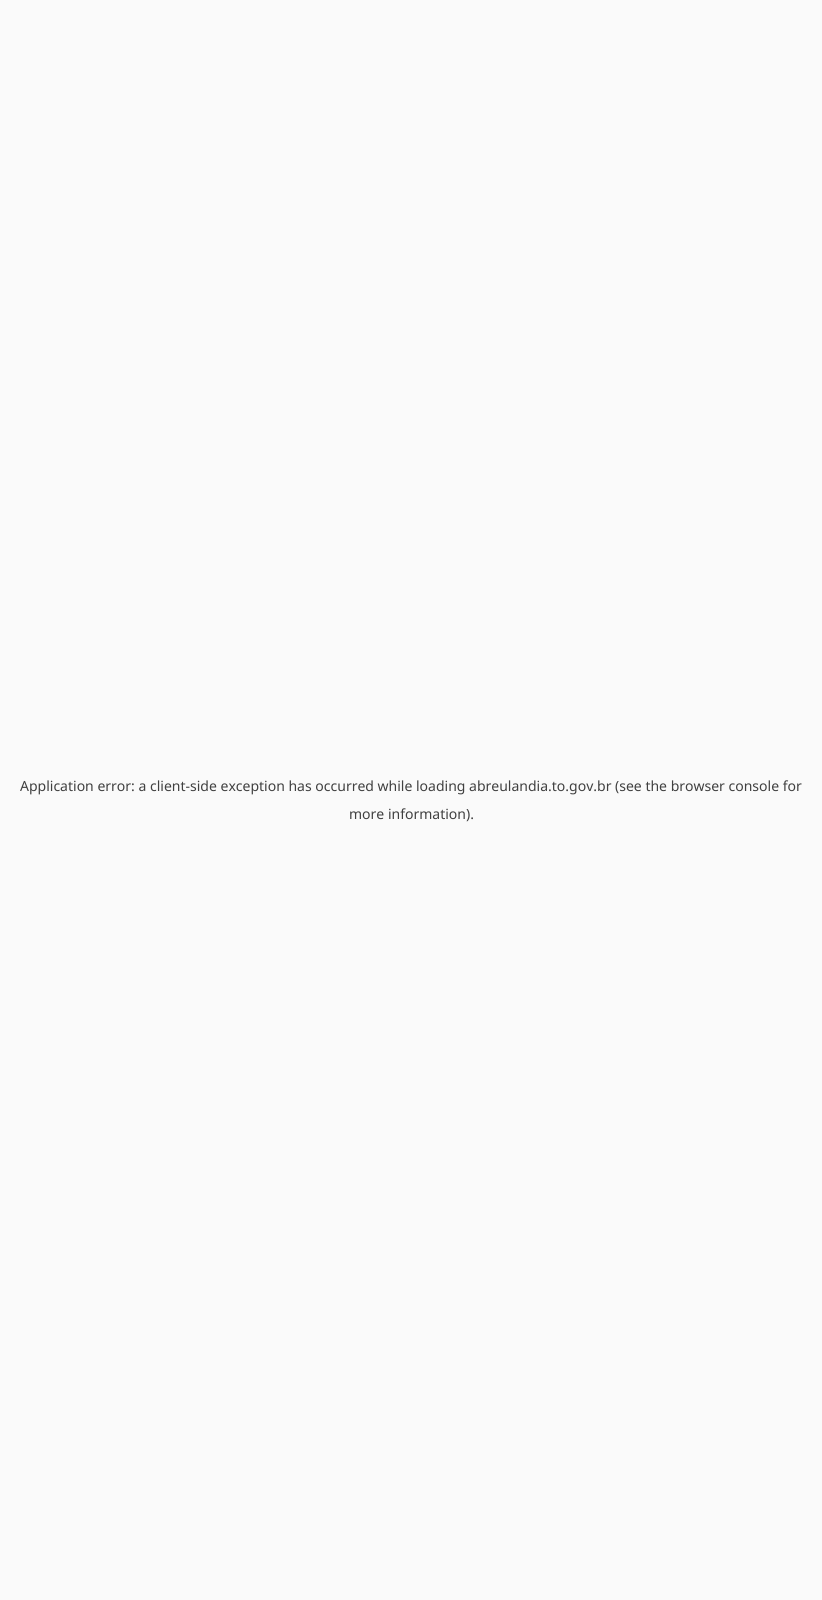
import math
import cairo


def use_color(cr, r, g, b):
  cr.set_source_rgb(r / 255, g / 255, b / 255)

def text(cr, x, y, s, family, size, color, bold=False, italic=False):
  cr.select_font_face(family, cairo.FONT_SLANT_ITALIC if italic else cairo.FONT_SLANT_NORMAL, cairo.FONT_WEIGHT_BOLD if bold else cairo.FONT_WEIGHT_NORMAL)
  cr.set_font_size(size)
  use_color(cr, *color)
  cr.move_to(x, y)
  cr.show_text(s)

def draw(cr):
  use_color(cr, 250, 250, 250)
  cr.paint()
  text(cr, 20, 791, "Application error: a client-side exception has occurred while loading abreulandia.to.gov.br (see the browser console for", "Noto Sans", 14, (64, 64, 64))
  text(cr, 349, 819, "more information).", "Noto Sans", 14, (64, 64, 64))


surface = cairo.ImageSurface(cairo.FORMAT_RGB24, 822, 1600)
cr = cairo.Context(surface)
options = cairo.FontOptions()
options.set_hint_metrics(cairo.HINT_METRICS_OFF)
options.set_hint_style(cairo.HINT_STYLE_NONE)
cr.set_font_options(options)
cr.set_miter_limit(4)
draw(cr)
surface.write_to_png("out.png")
